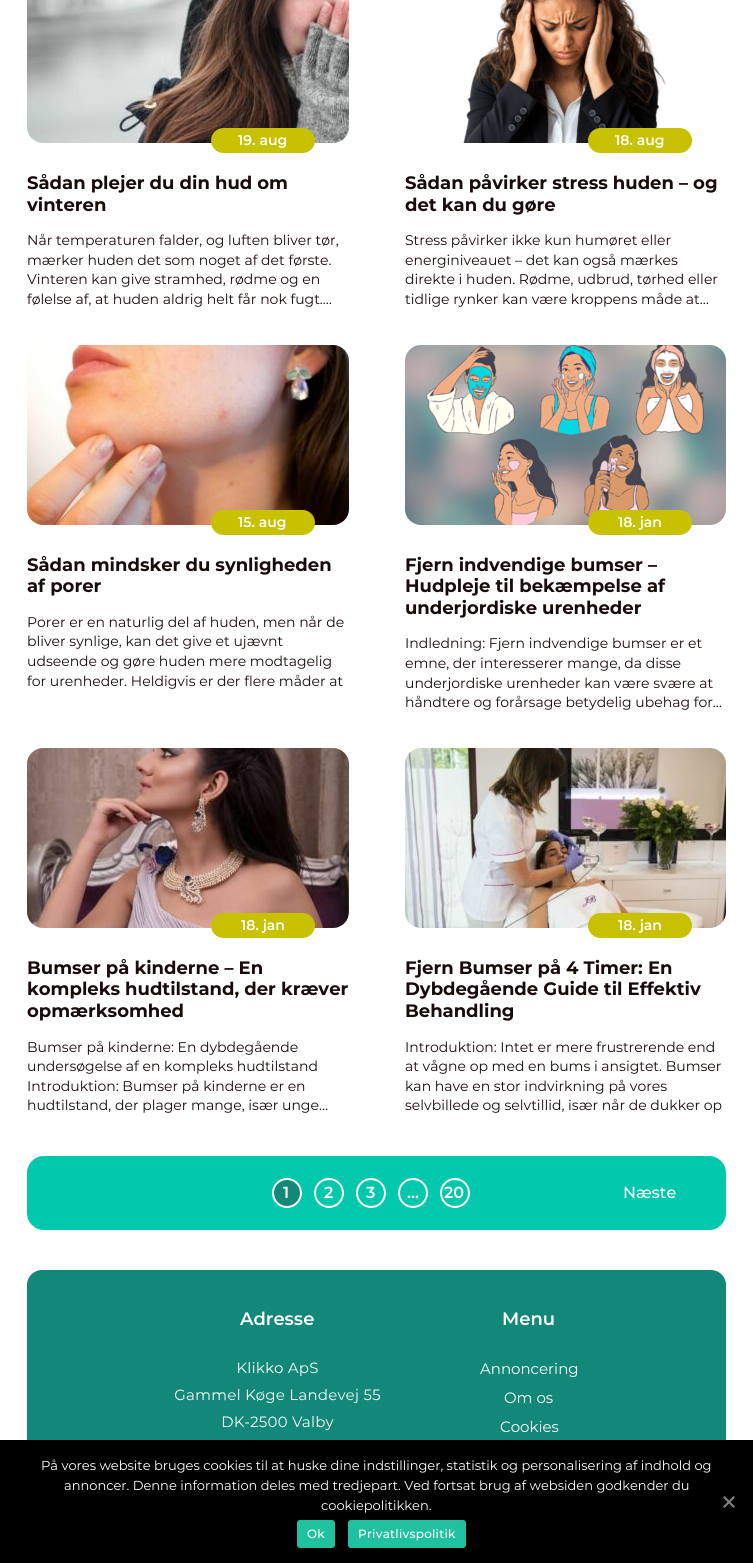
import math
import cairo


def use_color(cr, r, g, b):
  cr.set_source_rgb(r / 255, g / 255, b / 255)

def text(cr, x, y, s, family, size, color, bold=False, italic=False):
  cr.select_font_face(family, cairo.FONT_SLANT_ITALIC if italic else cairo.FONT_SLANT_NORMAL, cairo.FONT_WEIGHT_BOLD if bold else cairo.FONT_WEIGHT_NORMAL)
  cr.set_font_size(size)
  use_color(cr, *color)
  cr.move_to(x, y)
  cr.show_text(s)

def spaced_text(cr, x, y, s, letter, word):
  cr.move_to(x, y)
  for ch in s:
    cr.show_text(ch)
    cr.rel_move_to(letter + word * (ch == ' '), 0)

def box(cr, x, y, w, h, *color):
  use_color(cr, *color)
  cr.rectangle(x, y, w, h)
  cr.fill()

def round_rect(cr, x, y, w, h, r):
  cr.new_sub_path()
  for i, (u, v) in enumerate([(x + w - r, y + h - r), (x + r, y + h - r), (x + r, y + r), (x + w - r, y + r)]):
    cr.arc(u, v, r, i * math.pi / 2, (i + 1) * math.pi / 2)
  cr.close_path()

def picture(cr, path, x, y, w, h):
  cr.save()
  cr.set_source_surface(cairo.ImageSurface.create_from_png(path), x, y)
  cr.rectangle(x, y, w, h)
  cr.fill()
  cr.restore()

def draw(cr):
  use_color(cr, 255, 255, 255)
  cr.paint()
  picture(cr, "img_01.png", 27, 0, 322, 143)
  use_color(cr, 200, 193, 0)
  round_rect(cr, 211, 128, 104, 25, 12.5)
  cr.fill()
  picture(cr, "img_02.png", 463, 0, 203, 143)
  round_rect(cr, 588, 128, 104, 25, 12.5)
  cr.fill()
  picture(cr, "img_03.png", 27, 345, 322, 180)
  round_rect(cr, 211, 510, 104, 25, 12.5)
  cr.fill()
  picture(cr, "img_04.png", 405, 345, 321, 180)
  round_rect(cr, 588, 510, 104, 25, 12.5)
  cr.fill()
  picture(cr, "img_05.png", 27, 748, 322, 180)
  round_rect(cr, 211, 913, 104, 25, 12.5)
  cr.fill()
  picture(cr, "img_06.png", 405, 748, 321, 180)
  round_rect(cr, 588, 913, 104, 25, 12.5)
  cr.fill()
  use_color(cr, 0, 200, 173)
  round_rect(cr, 27, 1156, 699, 74, 17)
  cr.fill()
  use_color(cr, 17, 136, 120)
  cr.arc(287, 1193, 14, 0, 2 * math.pi)
  cr.fill_preserve()
  use_color(cr, 255, 255, 255)
  cr.stroke()
  cr.arc(329, 1193, 14, 0, 2 * math.pi)
  cr.stroke()
  cr.arc(371, 1193, 14, 0, 2 * math.pi)
  cr.stroke()
  cr.arc(413, 1193, 14, 0, 2 * math.pi)
  cr.stroke()
  cr.arc(455, 1193, 14, 0, 2 * math.pi)
  cr.stroke()
  use_color(cr, 17, 136, 120)
  round_rect(cr, 27, 1270, 699, 293, 15)
  cr.fill()
  picture(cr, "img_07.png", 175, 1362, 205, 68)
  box(cr, 0, 1440, 753, 123, 0, 0, 0)
  use_color(cr, 128, 128, 128)
  cr.new_path()
  cr.move_to(733.5, 1496)
  cr.line_to(735, 1497.5)
  cr.line_to(724.5, 1508)
  cr.line_to(723, 1506.5)
  cr.close_path()
  cr.fill()
  cr.new_path()
  cr.move_to(723, 1497.5)
  cr.line_to(724.5, 1496)
  cr.line_to(735, 1506.5)
  cr.line_to(733.5, 1508)
  cr.close_path()
  cr.fill()
  use_color(cr, 32, 193, 158)
  round_rect(cr, 297, 1520, 38, 28, 3)
  cr.fill()
  round_rect(cr, 348, 1520, 118, 28, 3)
  cr.fill()
  text(cr, 238, 145, "19. aug", "Montserrat SemiBold", 14, (255, 255, 255))
  text(cr, 27, 189, "Sådan plejer du din hud om", "Montserrat", 18, (26, 11, 11), bold=True)
  text(cr, 27, 211, "vinteren", "Montserrat", 18, (26, 11, 11), bold=True)
  text(cr, 27, 245, "Når temperaturen falder, og luften bliver tør,", "Montserrat", 14, (26, 11, 11))
  text(cr, 27, 265, "mærker huden det som noget af det første.", "Montserrat", 14, (26, 11, 11))
  text(cr, 27, 284, "Vinteren kan give stramhed, rødme og en", "Montserrat", 14, (26, 11, 11))
  text(cr, 27, 304, "følelse af, at huden aldrig helt får nok fugt.…", "Montserrat", 14, (26, 11, 11))
  text(cr, 615, 145, "18. aug", "Montserrat SemiBold", 14, (255, 255, 255))
  text(cr, 405, 189, "Sådan påvirker stress huden – og", "Montserrat", 18, (26, 11, 11), bold=True)
  text(cr, 405, 211, "det kan du gøre", "Montserrat", 18, (26, 11, 11), bold=True)
  text(cr, 405, 245, "Stress påvirker ikke kun humøret eller", "Montserrat", 14, (26, 11, 11))
  text(cr, 405, 265, "energiniveauet – det kan også mærkes", "Montserrat", 14, (26, 11, 11))
  text(cr, 405, 284, "direkte i huden. Rødme, udbrud, tørhed eller", "Montserrat", 14, (26, 11, 11))
  text(cr, 405, 304, "tidlige rynker kan være kroppens måde at…", "Montserrat", 14, (26, 11, 11))
  text(cr, 238, 527, "15. aug", "Montserrat SemiBold", 14, (255, 255, 255))
  text(cr, 27, 571, "Sådan mindsker du synligheden", "Montserrat", 18, (26, 11, 11), bold=True)
  text(cr, 27, 592, "af porer", "Montserrat", 18, (26, 11, 11), bold=True)
  text(cr, 27, 627, "Porer er en naturlig del af huden, men når de", "Montserrat", 14, (26, 11, 11))
  text(cr, 27, 646, "bliver synlige, kan det give et ujævnt", "Montserrat", 14, (26, 11, 11))
  text(cr, 27, 666, "udseende og gøre huden mere modtagelig", "Montserrat", 14, (26, 11, 11))
  text(cr, 27, 686, "for urenheder. Heldigvis er der flere måder at", "Montserrat", 14, (26, 11, 11))
  text(cr, 618, 527, "18. jan", "Montserrat SemiBold", 14, (255, 255, 255))
  text(cr, 405, 571, "Fjern indvendige bumser –", "Montserrat", 18, (26, 11, 11), bold=True)
  text(cr, 405, 592, "Hudpleje til bekæmpelse af", "Montserrat", 18, (26, 11, 11), bold=True)
  text(cr, 405, 614, "underjordiske urenheder", "Montserrat", 18, (26, 11, 11), bold=True)
  text(cr, 405, 648, "Indledning: Fjern indvendige bumser er et", "Montserrat", 14, (26, 11, 11))
  text(cr, 405, 668, "emne, der interesserer mange, da disse", "Montserrat", 14, (26, 11, 11))
  text(cr, 405, 688, "underjordiske urenheder kan være svære at", "Montserrat", 14, (26, 11, 11))
  text(cr, 405, 707, "håndtere og forårsage betydelig ubehag for…", "Montserrat", 14, (26, 11, 11))
  text(cr, 241, 930, "18. jan", "Montserrat SemiBold", 14, (255, 255, 255))
  text(cr, 27, 974, "Bumser på kinderne – En", "Montserrat", 18, (26, 11, 11), bold=True)
  text(cr, 27, 995, "kompleks hudtilstand, der kræver", "Montserrat", 18, (26, 11, 11), bold=True)
  text(cr, 27, 1017, "opmærksomhed", "Montserrat", 18, (26, 11, 11), bold=True)
  text(cr, 27, 1052, "Bumser på kinderne: En dybdegående", "Montserrat", 14, (26, 11, 11))
  text(cr, 27, 1071, "undersøgelse af en kompleks hudtilstand", "Montserrat", 14, (26, 11, 11))
  text(cr, 27, 1091, "Introduktion: Bumser på kinderne er en", "Montserrat", 14, (26, 11, 11))
  text(cr, 27, 1110, "hudtilstand, der plager mange, især unge…", "Montserrat", 14, (26, 11, 11))
  text(cr, 618, 930, "18. jan", "Montserrat SemiBold", 14, (255, 255, 255))
  text(cr, 405, 974, "Fjern Bumser på 4 Timer: En", "Montserrat", 18, (26, 11, 11), bold=True)
  text(cr, 405, 995, "Dybdegående Guide til Effektiv", "Montserrat", 18, (26, 11, 11), bold=True)
  text(cr, 405, 1017, "Behandling", "Montserrat", 18, (26, 11, 11), bold=True)
  text(cr, 405, 1052, "Introduktion: Intet er mere frustrerende end", "Montserrat", 14, (26, 11, 11))
  text(cr, 405, 1071, "at vågne op med en bums i ansigtet. Bumser", "Montserrat", 14, (26, 11, 11))
  text(cr, 405, 1091, "kan have en stor indvirkning på vores", "Montserrat", 14, (26, 11, 11))
  text(cr, 405, 1110, "selvbillede og selvtillid, især når de dukker op", "Montserrat", 14, (26, 11, 11))
  text(cr, 283, 1198, "1", "Montserrat SemiBold", 16, (255, 255, 255))
  text(cr, 324, 1198, "2", "Montserrat SemiBold", 16, (255, 255, 255))
  text(cr, 366, 1198, "3", "Montserrat SemiBold", 16, (255, 255, 255))
  text(cr, 407, 1198, "…", "Montserrat SemiBold", 16, (255, 255, 255))
  text(cr, 444, 1198, "20", "Montserrat SemiBold", 16, (255, 255, 255))
  text(cr, 623, 1198, "Næste", "Montserrat Medium", 16, (255, 255, 255))
  text(cr, 240, 1325, "Adresse", "Montserrat SemiBold", 18, (255, 255, 255))
  text(cr, 502, 1325, "Menu", "Montserrat SemiBold", 18, (255, 255, 255))
  text(cr, 480, 1374, "Annoncering", "Montserrat", 15, (255, 255, 255))
  text(cr, 504, 1403, "Om os", "Montserrat", 15, (255, 255, 255))
  text(cr, 500, 1432, "Cookies", "Montserrat", 15, (255, 255, 255))
  text(cr, 41, 1470, "På vores website bruges cookies til at huske dine indstillinger, statistik og personalisering af indhold og", "Montserrat", 13, (255, 255, 255))
  text(cr, 64, 1490, "annoncer. Denne information deles med tredjepart. Ved fortsat brug af websiden godkender du", "Montserrat", 13, (255, 255, 255))
  text(cr, 321, 1510, "cookiepolitikken.", "Montserrat", 13, (255, 255, 255))
  cr.select_font_face("Montserrat Medium")
  cr.set_font_size(12)
  spaced_text(cr, 307, 1538, "Ok", 0.25, 0)
  spaced_text(cr, 358, 1538, "Privatlivspolitik", 0.25, 0)


surface = cairo.ImageSurface(cairo.FORMAT_RGB24, 753, 1563)
cr = cairo.Context(surface)
options = cairo.FontOptions()
options.set_hint_metrics(cairo.HINT_METRICS_OFF)
options.set_hint_style(cairo.HINT_STYLE_NONE)
cr.set_font_options(options)
cr.set_miter_limit(4)
draw(cr)
surface.write_to_png("out.png")
